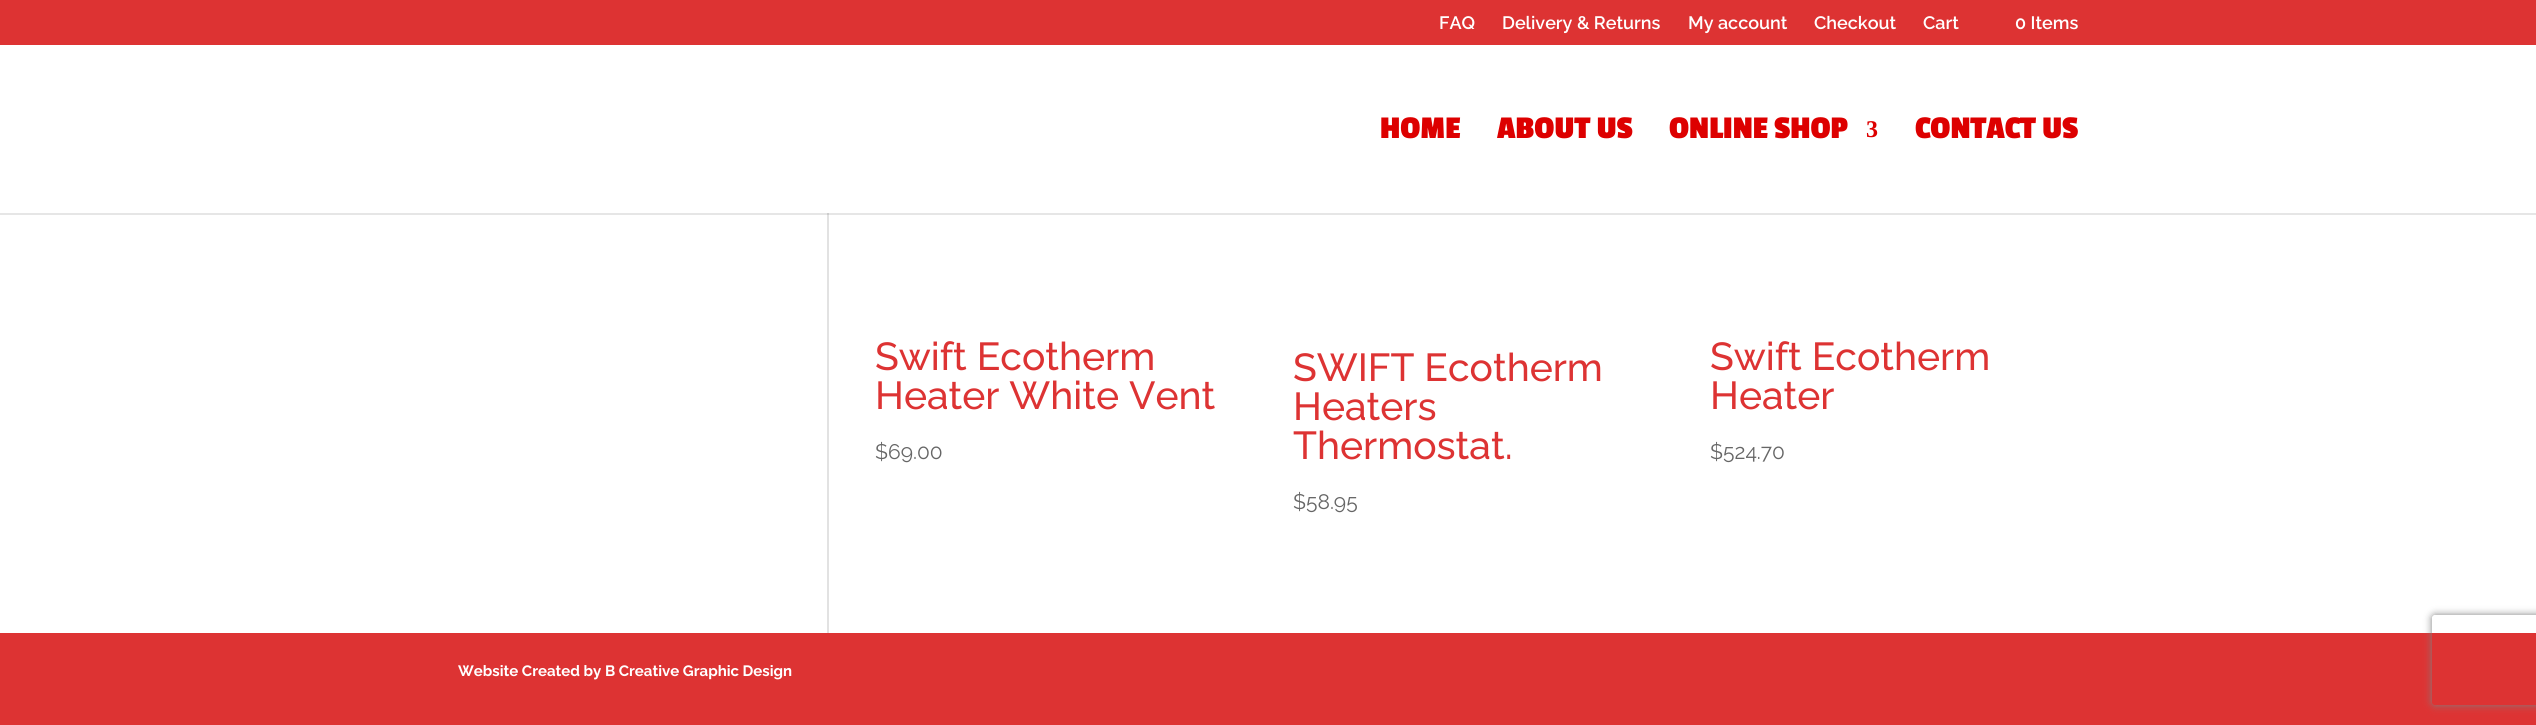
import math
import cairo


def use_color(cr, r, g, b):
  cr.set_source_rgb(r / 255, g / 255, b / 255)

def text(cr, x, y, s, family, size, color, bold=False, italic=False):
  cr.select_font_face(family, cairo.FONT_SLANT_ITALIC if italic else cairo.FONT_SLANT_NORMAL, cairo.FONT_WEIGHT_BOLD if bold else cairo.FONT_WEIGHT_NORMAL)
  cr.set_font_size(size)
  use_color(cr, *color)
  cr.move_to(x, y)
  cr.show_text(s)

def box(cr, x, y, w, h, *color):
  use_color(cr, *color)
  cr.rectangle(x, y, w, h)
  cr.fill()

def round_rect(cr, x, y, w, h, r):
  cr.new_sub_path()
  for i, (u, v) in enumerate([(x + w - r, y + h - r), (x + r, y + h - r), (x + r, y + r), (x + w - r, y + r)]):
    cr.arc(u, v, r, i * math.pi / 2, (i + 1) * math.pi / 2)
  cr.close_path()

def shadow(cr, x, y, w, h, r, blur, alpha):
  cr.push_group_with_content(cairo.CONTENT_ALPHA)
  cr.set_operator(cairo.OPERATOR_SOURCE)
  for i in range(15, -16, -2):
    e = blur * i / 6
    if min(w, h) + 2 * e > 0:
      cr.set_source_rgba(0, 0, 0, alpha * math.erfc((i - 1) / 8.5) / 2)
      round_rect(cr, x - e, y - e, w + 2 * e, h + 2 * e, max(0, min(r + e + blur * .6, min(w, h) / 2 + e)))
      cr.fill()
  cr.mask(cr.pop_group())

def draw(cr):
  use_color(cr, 255, 255, 255)
  cr.paint()
  box(cr, 0, 0, 2536, 45, 221, 51, 51)
  box(cr, 827, 213, 2, 420, 226, 226, 226)
  cr.set_source_rgba(0, 0, 0, 0.1)
  cr.new_path()
  cr.move_to(0, 213)
  cr.line_to(0, 215)
  cr.line_to(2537, 215)
  cr.line_to(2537, 47)
  cr.line_to(2536, 47)
  cr.line_to(2536, 213)
  cr.close_path()
  cr.fill()
  box(cr, 0, 633, 2536, 92, 221, 51, 51)
  cr.save()
  cr.set_fill_rule(cairo.FILL_RULE_EVEN_ODD)
  cr.new_path()
  cr.move_to(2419, 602)
  cr.line_to(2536, 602)
  cr.line_to(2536, 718)
  cr.line_to(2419, 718)
  cr.close_path()
  cr.move_to(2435, 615)
  cr.line_to(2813, 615)
  cr.curve_to(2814.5, 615, 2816, 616.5, 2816, 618)
  cr.line_to(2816, 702)
  cr.curve_to(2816, 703.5, 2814.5, 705, 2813, 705)
  cr.line_to(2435, 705)
  cr.curve_to(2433.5, 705, 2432, 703.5, 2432, 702)
  cr.line_to(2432, 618)
  cr.curve_to(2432, 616.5, 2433.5, 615, 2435, 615)
  cr.close_path()
  cr.clip()
  use_color(cr, 128, 128, 128)
  shadow(cr, 2432, 615, 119, 90, 3, 4, 1)
  cr.restore()
  text(cr, 1439, 29, "FAQ", "Raleway SemiBold", 18, (255, 255, 255))
  text(cr, 1502, 29, "Delivery & Returns", "Raleway SemiBold", 18, (255, 255, 255))
  text(cr, 1688, 29, "My account", "Raleway SemiBold", 18, (255, 255, 255))
  text(cr, 1814, 29, "Checkout", "Raleway SemiBold", 18, (255, 255, 255))
  text(cr, 1923, 29, "Cart", "Raleway SemiBold", 18, (255, 255, 255))
  text(cr, 2015, 29, "0 Items", "Raleway SemiBold", 18, (255, 255, 255))
  text(cr, 1380, 138, "HOME", "Passion One", 33, (221, 0, 0), bold=True)
  text(cr, 1497, 138, "ABOUT US", "Passion One", 33, (221, 0, 0), bold=True)
  text(cr, 1669, 138, "ONLINE SHOP", "Passion One", 33, (221, 0, 0), bold=True)
  text(cr, 1866, 137, "3", "Liberation Serif", 24, (221, 0, 0), bold=True)
  text(cr, 1915, 138, "CONTACT US", "Passion One", 33, (221, 0, 0), bold=True)
  text(cr, 875, 370, "Swift Ecotherm", "Raleway Medium", 39, (221, 51, 51))
  text(cr, 875, 409, "Heater White Vent", "Raleway Medium", 39, (221, 51, 51))
  text(cr, 875, 459, "$69.00", "Raleway", 21, (102, 102, 102))
  text(cr, 1293, 381, "SWIFT Ecotherm", "Raleway Medium", 39, (221, 51, 51))
  text(cr, 1293, 420, "Heaters", "Raleway Medium", 39, (221, 51, 51))
  text(cr, 1293, 459, "Thermostat.", "Raleway Medium", 39, (221, 51, 51))
  text(cr, 1293, 509, "$58.95", "Raleway", 21, (102, 102, 102))
  text(cr, 1710, 370, "Swift Ecotherm", "Raleway Medium", 39, (221, 51, 51))
  text(cr, 1710, 409, "Heater", "Raleway Medium", 39, (221, 51, 51))
  text(cr, 1710, 459, "$524.70", "Raleway", 21, (102, 102, 102))
  text(cr, 458, 676, "Website Created by B Creative Graphic Design", "Raleway", 15, (255, 255, 255), bold=True)


surface = cairo.ImageSurface(cairo.FORMAT_RGB24, 2536, 725)
cr = cairo.Context(surface)
options = cairo.FontOptions()
options.set_hint_metrics(cairo.HINT_METRICS_OFF)
options.set_hint_style(cairo.HINT_STYLE_NONE)
cr.set_font_options(options)
cr.set_miter_limit(4)
draw(cr)
surface.write_to_png("out.png")
